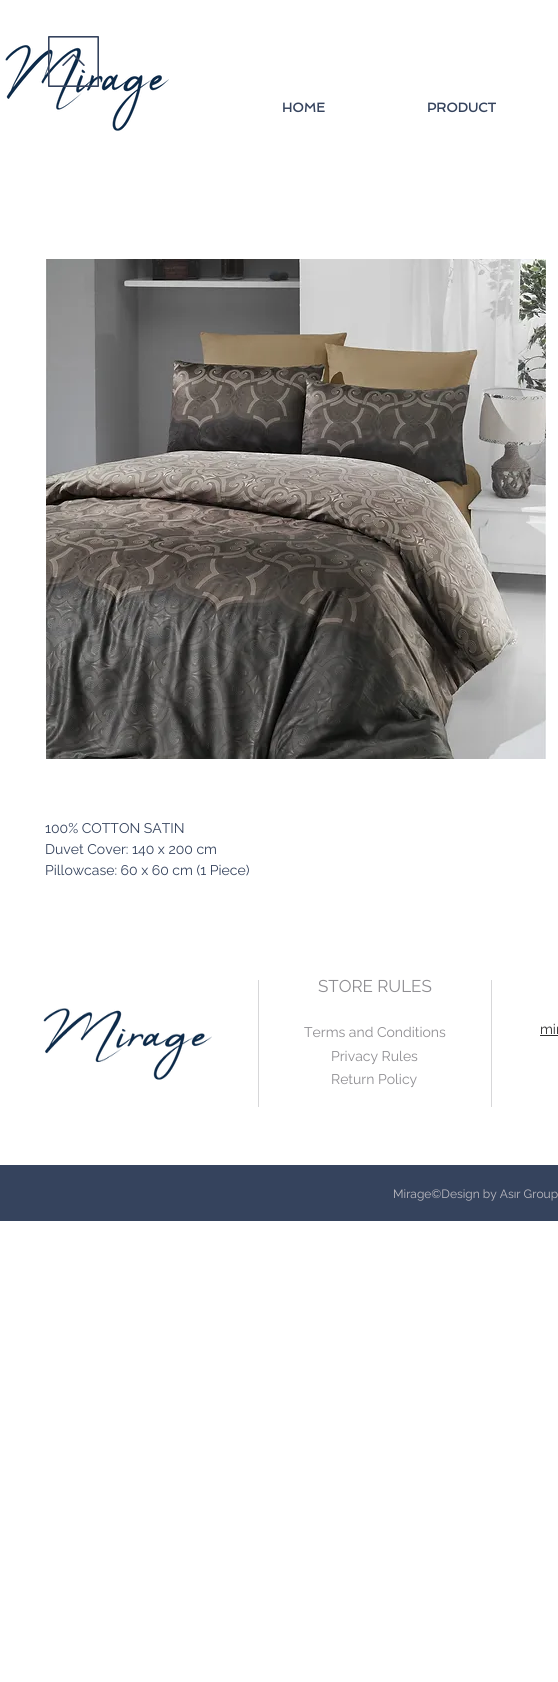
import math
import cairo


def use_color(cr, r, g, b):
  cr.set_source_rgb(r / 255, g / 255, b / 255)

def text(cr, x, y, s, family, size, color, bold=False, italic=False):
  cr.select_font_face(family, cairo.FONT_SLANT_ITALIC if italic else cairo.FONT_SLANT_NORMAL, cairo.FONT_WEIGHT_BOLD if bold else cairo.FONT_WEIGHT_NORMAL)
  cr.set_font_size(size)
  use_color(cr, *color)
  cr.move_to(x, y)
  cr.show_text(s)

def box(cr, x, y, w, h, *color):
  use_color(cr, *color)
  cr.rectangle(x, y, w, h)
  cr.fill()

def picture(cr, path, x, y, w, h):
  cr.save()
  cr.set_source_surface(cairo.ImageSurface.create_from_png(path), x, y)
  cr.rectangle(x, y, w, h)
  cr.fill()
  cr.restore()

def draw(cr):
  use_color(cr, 255, 255, 255)
  cr.paint()
  picture(cr, "img_02.png", 5, 45, 164, 86)
  picture(cr, "img_01.png", 48, 36, 51, 51)
  picture(cr, "img_03.png", 46, 259, 500, 500)
  picture(cr, "img_04.png", 43, 1008, 169, 72)
  box(cr, 258, 980, 1, 127, 215, 215, 217)
  box(cr, 491, 980, 1, 127, 215, 215, 217)
  box(cr, 540, 1035, 18, 1, 47, 47, 48)
  box(cr, 0, 1165, 558, 56, 53, 67, 93)
  text(cr, 282, 112, "HOME", "Spinnaker", 13, (53, 67, 93), bold=True)
  text(cr, 427, 112, "PRODUCT", "Spinnaker", 13, (53, 67, 93), bold=True)
  text(cr, 45, 833, "100% COTTON SATIN", "Raleway", 14, (53, 67, 93))
  text(cr, 45, 854, "Duvet Cover: 140 x 200 cm", "Raleway", 14, (53, 67, 93))
  text(cr, 45, 875, "Pillowcase: 60 x 60 cm (1 Piece)", "Raleway", 14, (53, 67, 93))
  text(cr, 318, 992, "STORE RULES", "Raleway", 17, (142, 141, 145))
  text(cr, 304, 1037, "Terms and Conditions", "Raleway", 14, (142, 141, 145))
  text(cr, 331, 1061, "Privacy Rules", "Raleway", 14, (142, 141, 145))
  text(cr, 331, 1084, "Return Policy", "Raleway", 14, (142, 141, 145))
  text(cr, 540, 1034, "mir", "Raleway", 14, (47, 47, 48))
  text(cr, 393, 1198, "Mirage©Design by Asır Group", "Raleway", 12, (190, 188, 194))


surface = cairo.ImageSurface(cairo.FORMAT_RGB24, 558, 1682)
cr = cairo.Context(surface)
options = cairo.FontOptions()
options.set_hint_metrics(cairo.HINT_METRICS_OFF)
options.set_hint_style(cairo.HINT_STYLE_NONE)
cr.set_font_options(options)
cr.set_miter_limit(4)
draw(cr)
surface.write_to_png("out.png")
